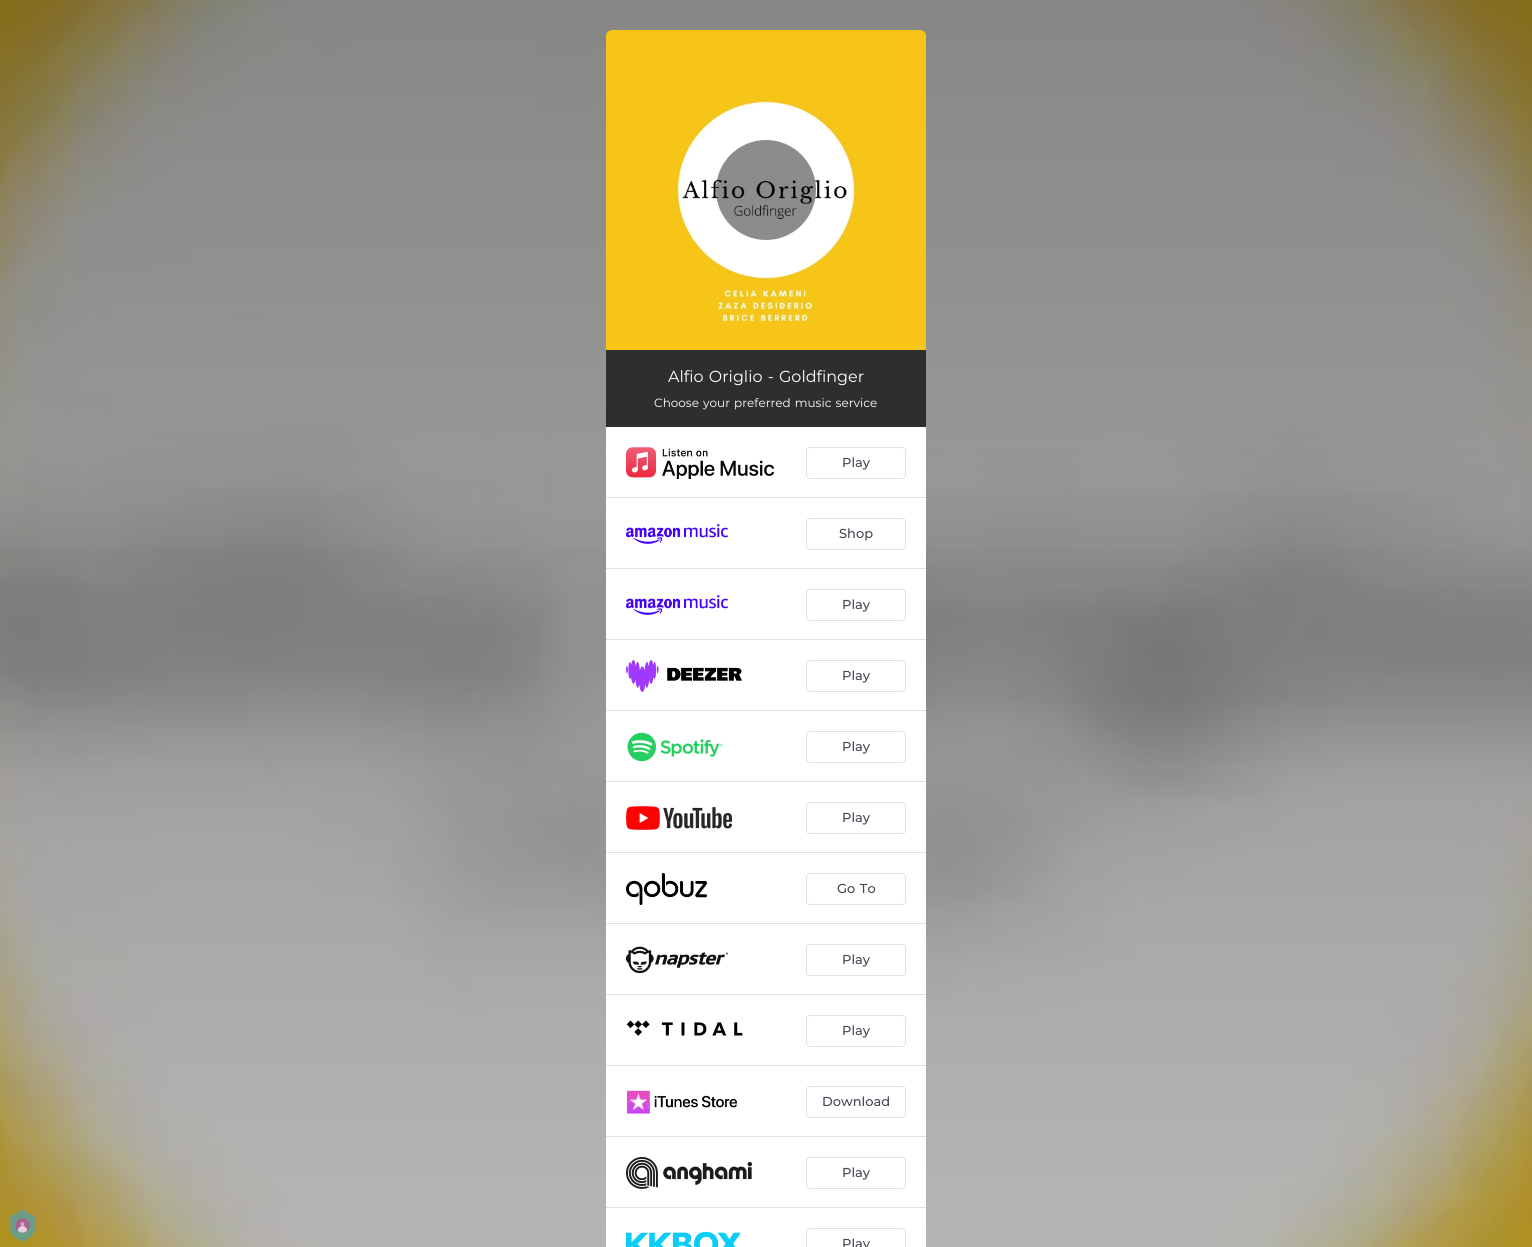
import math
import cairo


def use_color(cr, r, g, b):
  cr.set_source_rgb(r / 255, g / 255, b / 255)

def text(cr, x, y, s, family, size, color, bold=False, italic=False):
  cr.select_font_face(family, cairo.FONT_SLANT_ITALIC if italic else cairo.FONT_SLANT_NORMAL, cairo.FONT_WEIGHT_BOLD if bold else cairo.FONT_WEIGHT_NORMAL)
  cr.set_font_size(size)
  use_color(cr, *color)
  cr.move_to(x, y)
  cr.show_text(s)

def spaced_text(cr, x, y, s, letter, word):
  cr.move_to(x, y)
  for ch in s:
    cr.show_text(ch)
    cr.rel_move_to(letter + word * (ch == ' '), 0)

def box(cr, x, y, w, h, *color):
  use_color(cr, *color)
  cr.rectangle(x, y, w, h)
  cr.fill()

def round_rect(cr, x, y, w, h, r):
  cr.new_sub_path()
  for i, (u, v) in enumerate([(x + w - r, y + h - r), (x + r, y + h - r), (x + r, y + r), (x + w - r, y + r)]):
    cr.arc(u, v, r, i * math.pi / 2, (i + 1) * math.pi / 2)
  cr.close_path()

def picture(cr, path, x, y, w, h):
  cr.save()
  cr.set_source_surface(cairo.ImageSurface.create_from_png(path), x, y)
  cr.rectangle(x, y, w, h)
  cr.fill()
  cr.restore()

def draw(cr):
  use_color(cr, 255, 255, 255)
  cr.paint()
  picture(cr, "img_02.png", 0, 0, 1532, 1247)
  picture(cr, "img_01.png", 10, 1209, 25, 33)
  picture(cr, "img_03.png", 606, 30, 320, 320)
  cr.set_source_rgba(0, 0, 0, 0.45)
  cr.arc(766, 190, 50, 0, 2 * math.pi)
  cr.fill()
  box(cr, 606, 350, 320, 77, 46, 46, 46)
  box(cr, 606, 427, 320, 820, 255, 255, 255)
  box(cr, 606, 497, 320, 1, 225, 225, 228)
  picture(cr, "img_04.png", 626, 447, 148, 32)
  round_rect(cr, 806.5, 447.5, 99, 31, 3.5)
  cr.set_line_width(1)
  cr.stroke()
  box(cr, 606, 568, 320, 1, 225, 225, 228)
  picture(cr, "img_05.png", 626, 524, 102, 20)
  round_rect(cr, 806.5, 518.5, 99, 31, 3.5)
  cr.stroke()
  box(cr, 606, 639, 320, 1, 225, 225, 228)
  picture(cr, "img_05.png", 626, 595, 102, 20)
  round_rect(cr, 806.5, 589.5, 99, 31, 3.5)
  cr.stroke()
  box(cr, 606, 710, 320, 1, 225, 225, 228)
  picture(cr, "img_06.png", 626, 660, 116, 32)
  round_rect(cr, 806.5, 660.5, 99, 31, 3.5)
  cr.stroke()
  box(cr, 606, 781, 320, 1, 225, 225, 228)
  picture(cr, "img_07.png", 627, 732, 96, 30)
  round_rect(cr, 806.5, 731.5, 99, 31, 3.5)
  cr.stroke()
  box(cr, 606, 852, 320, 1, 225, 225, 228)
  picture(cr, "img_08.png", 626, 806, 106, 24)
  round_rect(cr, 806.5, 802.5, 99, 31, 3.5)
  cr.stroke()
  box(cr, 606, 923, 320, 1, 225, 225, 228)
  picture(cr, "img_09.png", 626, 873, 81, 32)
  round_rect(cr, 806.5, 873.5, 99, 31, 3.5)
  cr.stroke()
  box(cr, 606, 994, 320, 1, 225, 225, 228)
  picture(cr, "img_10.png", 626, 946, 102, 28)
  round_rect(cr, 806.5, 944.5, 99, 31, 3.5)
  cr.stroke()
  box(cr, 606, 1065, 320, 1, 225, 225, 228)
  picture(cr, "img_11.png", 626, 1020, 117, 16)
  round_rect(cr, 806.5, 1015.5, 99, 31, 3.5)
  cr.stroke()
  box(cr, 606, 1136, 320, 1, 225, 225, 228)
  picture(cr, "img_12.png", 627, 1090, 111, 24)
  round_rect(cr, 806.5, 1086.5, 99, 31, 3.5)
  cr.stroke()
  box(cr, 606, 1207, 320, 1, 225, 225, 228)
  picture(cr, "img_13.png", 626, 1157, 126, 32)
  round_rect(cr, 806.5, 1157.5, 99, 31, 3.5)
  cr.stroke()
  picture(cr, "img_14.png", 626, 1231, 115, 16)
  round_rect(cr, 806.5, 1228.5, 99, 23, 3.5)
  cr.stroke()
  cr.select_font_face("Montserrat")
  cr.set_font_size(16)
  use_color(cr, 255, 255, 255)
  spaced_text(cr, 668, 382, "Alfio Origlio - Goldfinger", 0, 1)
  cr.set_font_size(12)
  spaced_text(cr, 654, 407, "Choose your preferred music service", 0, 1)
  text(cr, 842, 467, "Play", "Montserrat Medium", 13, (65, 71, 84))
  text(cr, 839, 538, "Shop", "Montserrat Medium", 13, (65, 71, 84))
  text(cr, 842, 609, "Play", "Montserrat Medium", 13, (65, 71, 84))
  text(cr, 842, 680, "Play", "Montserrat Medium", 13, (65, 71, 84))
  text(cr, 842, 751, "Play", "Montserrat Medium", 13, (65, 71, 84))
  text(cr, 842, 822, "Play", "Montserrat Medium", 13, (65, 71, 84))
  spaced_text(cr, 837, 893, "Go To", 0, 1)
  text(cr, 842, 964, "Play", "Montserrat Medium", 13, (65, 71, 84))
  text(cr, 842, 1035, "Play", "Montserrat Medium", 13, (65, 71, 84))
  text(cr, 822, 1106, "Download", "Montserrat Medium", 13, (65, 71, 84))
  text(cr, 842, 1177, "Play", "Montserrat Medium", 13, (65, 71, 84))
  text(cr, 842, 1248, "Play", "Montserrat Medium", 13, (65, 71, 84))


surface = cairo.ImageSurface(cairo.FORMAT_RGB24, 1532, 1247)
cr = cairo.Context(surface)
options = cairo.FontOptions()
options.set_hint_metrics(cairo.HINT_METRICS_OFF)
options.set_hint_style(cairo.HINT_STYLE_NONE)
cr.set_font_options(options)
cr.set_miter_limit(4)
draw(cr)
surface.write_to_png("out.png")
